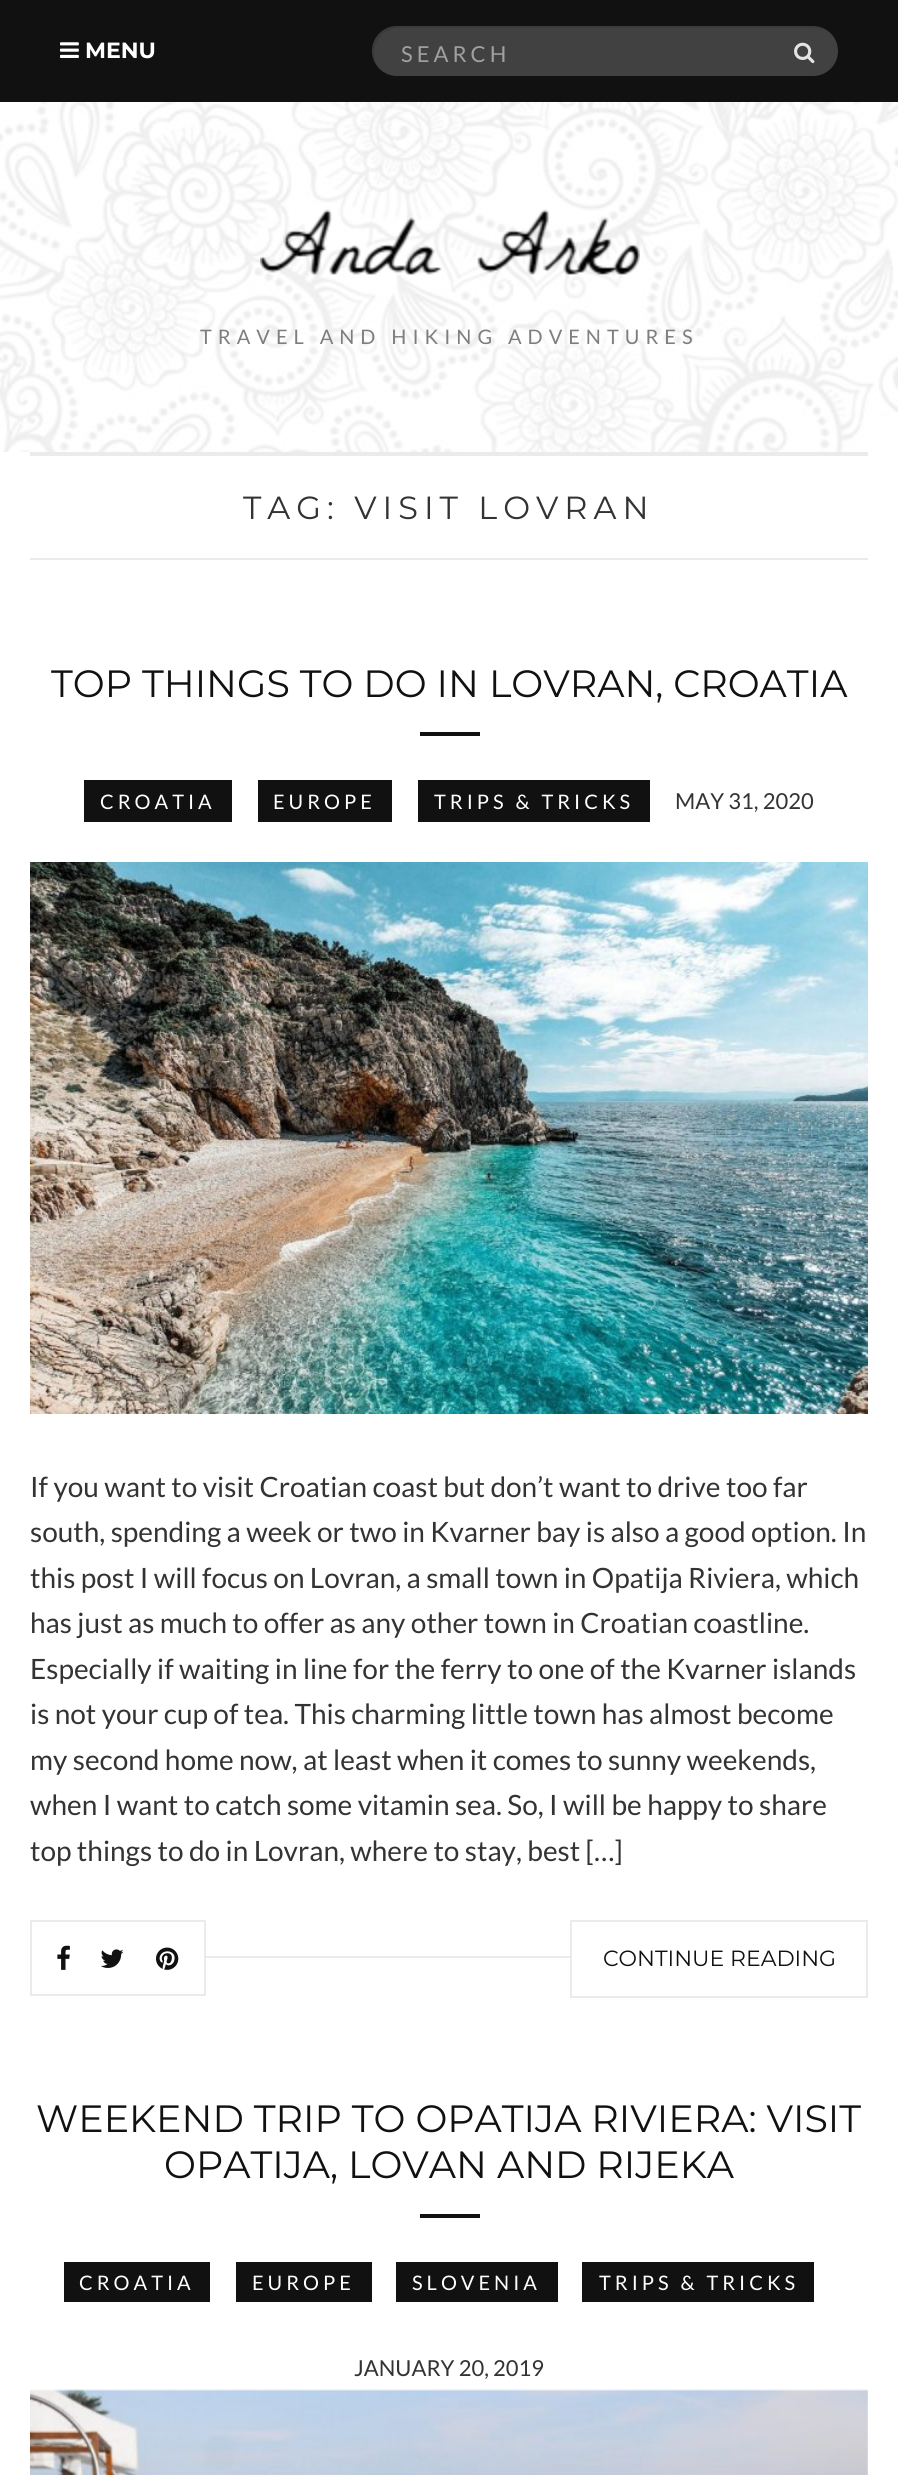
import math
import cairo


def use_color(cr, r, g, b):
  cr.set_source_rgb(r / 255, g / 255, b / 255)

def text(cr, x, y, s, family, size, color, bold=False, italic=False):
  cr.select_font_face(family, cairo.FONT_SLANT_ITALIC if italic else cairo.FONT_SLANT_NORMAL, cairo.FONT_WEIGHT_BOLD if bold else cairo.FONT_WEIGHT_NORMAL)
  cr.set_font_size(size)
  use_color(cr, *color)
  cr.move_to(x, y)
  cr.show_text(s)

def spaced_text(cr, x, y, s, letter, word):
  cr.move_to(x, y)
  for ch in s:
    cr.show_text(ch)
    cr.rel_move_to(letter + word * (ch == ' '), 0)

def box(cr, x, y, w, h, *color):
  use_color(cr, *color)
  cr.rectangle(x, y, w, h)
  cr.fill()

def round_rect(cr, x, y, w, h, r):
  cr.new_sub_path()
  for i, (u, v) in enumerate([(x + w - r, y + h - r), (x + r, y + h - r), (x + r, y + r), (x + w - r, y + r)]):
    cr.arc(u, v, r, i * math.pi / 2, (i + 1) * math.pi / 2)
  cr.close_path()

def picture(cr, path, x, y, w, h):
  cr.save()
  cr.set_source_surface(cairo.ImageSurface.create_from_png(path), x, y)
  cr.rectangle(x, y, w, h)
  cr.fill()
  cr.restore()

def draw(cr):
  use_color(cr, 255, 255, 255)
  cr.paint()
  box(cr, 0, 0, 898, 102, 17, 17, 17)
  picture(cr, "img_01.png", 60, 42, 19, 16)
  use_color(cr, 65, 65, 65)
  round_rect(cr, 372, 26, 466, 50, 25)
  cr.fill()
  cr.set_source_rgba(0, 0, 0, 0.1)
  cr.new_path()
  cr.move_to(399, 28)
  cr.line_to(815, 28)
  cr.curve_to(821, 28, 827, 30, 831, 34)
  cr.curve_to(827, 29, 821, 27, 816, 26)
  cr.line_to(397, 26)
  cr.curve_to(374, 26, 364, 54, 380, 69)
  cr.curve_to(366, 53, 378, 28, 399, 28)
  cr.close_path()
  cr.fill()
  picture(cr, "img_02.png", 794, 42, 21, 22)
  picture(cr, "img_03.png", 0, 102, 898, 350)
  picture(cr, "img_04.png", 260, 209, 380, 66)
  box(cr, 30, 452, 838, 4, 235, 235, 235)
  box(cr, 30, 558, 838, 2, 235, 235, 235)
  box(cr, 420, 732, 60, 4, 17, 17, 17)
  box(cr, 84, 780, 148, 42, 17, 17, 17)
  box(cr, 258, 780, 134, 42, 17, 17, 17)
  box(cr, 418, 780, 232, 42, 17, 17, 17)
  picture(cr, "img_05.png", 30, 862, 838, 552)
  cr.rectangle(31, 1921, 174, 74)
  use_color(cr, 235, 235, 235)
  cr.stroke()
  picture(cr, "img_06.png", 57, 1945, 13, 25)
  picture(cr, "img_07.png", 100, 1949, 24, 19)
  picture(cr, "img_08.png", 156, 1947, 23, 23)
  box(cr, 206, 1956, 364, 2, 235, 235, 235)
  cr.rectangle(571, 1921, 296, 76)
  cr.stroke()
  box(cr, 420, 2214, 60, 4, 17, 17, 17)
  box(cr, 64, 2262, 146, 40, 17, 17, 17)
  box(cr, 236, 2262, 136, 40, 17, 17, 17)
  box(cr, 396, 2262, 162, 40, 17, 17, 17)
  box(cr, 582, 2262, 232, 40, 17, 17, 17)
  picture(cr, "img_09.png", 30, 2389, 838, 86)
  text(cr, 85, 58, "MENU", "Montserrat", 22, (255, 255, 255), bold=True)
  cr.select_font_face("Lato")
  use_color(cr, 160, 160, 160)
  spaced_text(cr, 401, 62, "SEARCH", 4, 0)
  cr.set_font_size(20)
  use_color(cr, 126, 126, 126)
  spaced_text(cr, 200, 344, "TRAVEL AND HIKING ADVENTURES", 6, 0)
  cr.select_font_face("Montserrat")
  cr.set_font_size(32)
  use_color(cr, 51, 51, 51)
  spaced_text(cr, 243, 519, "TAG: VISIT LOVRAN", 6, 0)
  text(cr, 51, 697, "TOP THINGS TO DO IN LOVRAN, CROATIA", "Montserrat", 38, (17, 17, 17))
  cr.select_font_face("Lato")
  cr.set_font_size(20)
  use_color(cr, 255, 255, 255)
  spaced_text(cr, 100, 809, "CROATIA", 4, 0)
  spaced_text(cr, 273, 809, "EUROPE", 4, 0)
  spaced_text(cr, 434, 809, "TRIPS & TRICKS", 4, 0)
  text(cr, 675, 809, "MAY 31, 2020", "Lato", 22, (51, 51, 51))
  text(cr, 30, 1497, "If you want to visit Croatian coast but don’t want to drive too far", "Lato", 28, (51, 51, 51))
  text(cr, 30, 1542, "south, spending a week or two in Kvarner bay is also a good option. In", "Lato", 28, (51, 51, 51))
  text(cr, 30, 1588, "this post I will focus on Lovran, a small town in Opatija Riviera, which", "Lato", 28, (51, 51, 51))
  text(cr, 30, 1633, "has just as much to offer as any other town in Croatian coastline.", "Lato", 28, (51, 51, 51))
  text(cr, 30, 1679, "Especially if waiting in line for the ferry to one of the Kvarner islands", "Lato", 28, (51, 51, 51))
  text(cr, 30, 1724, "is not your cup of tea. This charming little town has almost become", "Lato", 28, (51, 51, 51))
  text(cr, 30, 1770, "my second home now, at least when it comes to sunny weekends,", "Lato", 28, (51, 51, 51))
  text(cr, 30, 1815, "when I want to catch some vitamin sea. So, I will be happy to share", "Lato", 28, (51, 51, 51))
  text(cr, 30, 1861, "top things to do in Lovran, where to stay, best […]", "Lato", 28, (51, 51, 51))
  text(cr, 603, 1966, "CONTINUE READING", "Montserrat", 22, (17, 17, 17))
  text(cr, 36, 2132, "WEEKEND TRIP TO OPATIJA RIVIERA: VISIT", "Montserrat", 38, (17, 17, 17))
  text(cr, 164, 2178, "OPATIJA, LOVAN AND RIJEKA", "Montserrat", 38, (17, 17, 17))
  cr.select_font_face("Lato")
  cr.set_font_size(20)
  use_color(cr, 255, 255, 255)
  spaced_text(cr, 79, 2290, "CROATIA", 4, 0)
  spaced_text(cr, 252, 2290, "EUROPE", 4, 0)
  spaced_text(cr, 412, 2290, "SLOVENIA", 4, 0)
  spaced_text(cr, 599, 2290, "TRIPS & TRICKS", 4, 0)
  text(cr, 354, 2376, "JANUARY 20, 2019", "Lato", 22, (51, 51, 51))


surface = cairo.ImageSurface(cairo.FORMAT_RGB24, 898, 2475)
cr = cairo.Context(surface)
options = cairo.FontOptions()
options.set_hint_metrics(cairo.HINT_METRICS_OFF)
options.set_hint_style(cairo.HINT_STYLE_NONE)
cr.set_font_options(options)
cr.set_miter_limit(4)
draw(cr)
surface.write_to_png("out.png")
